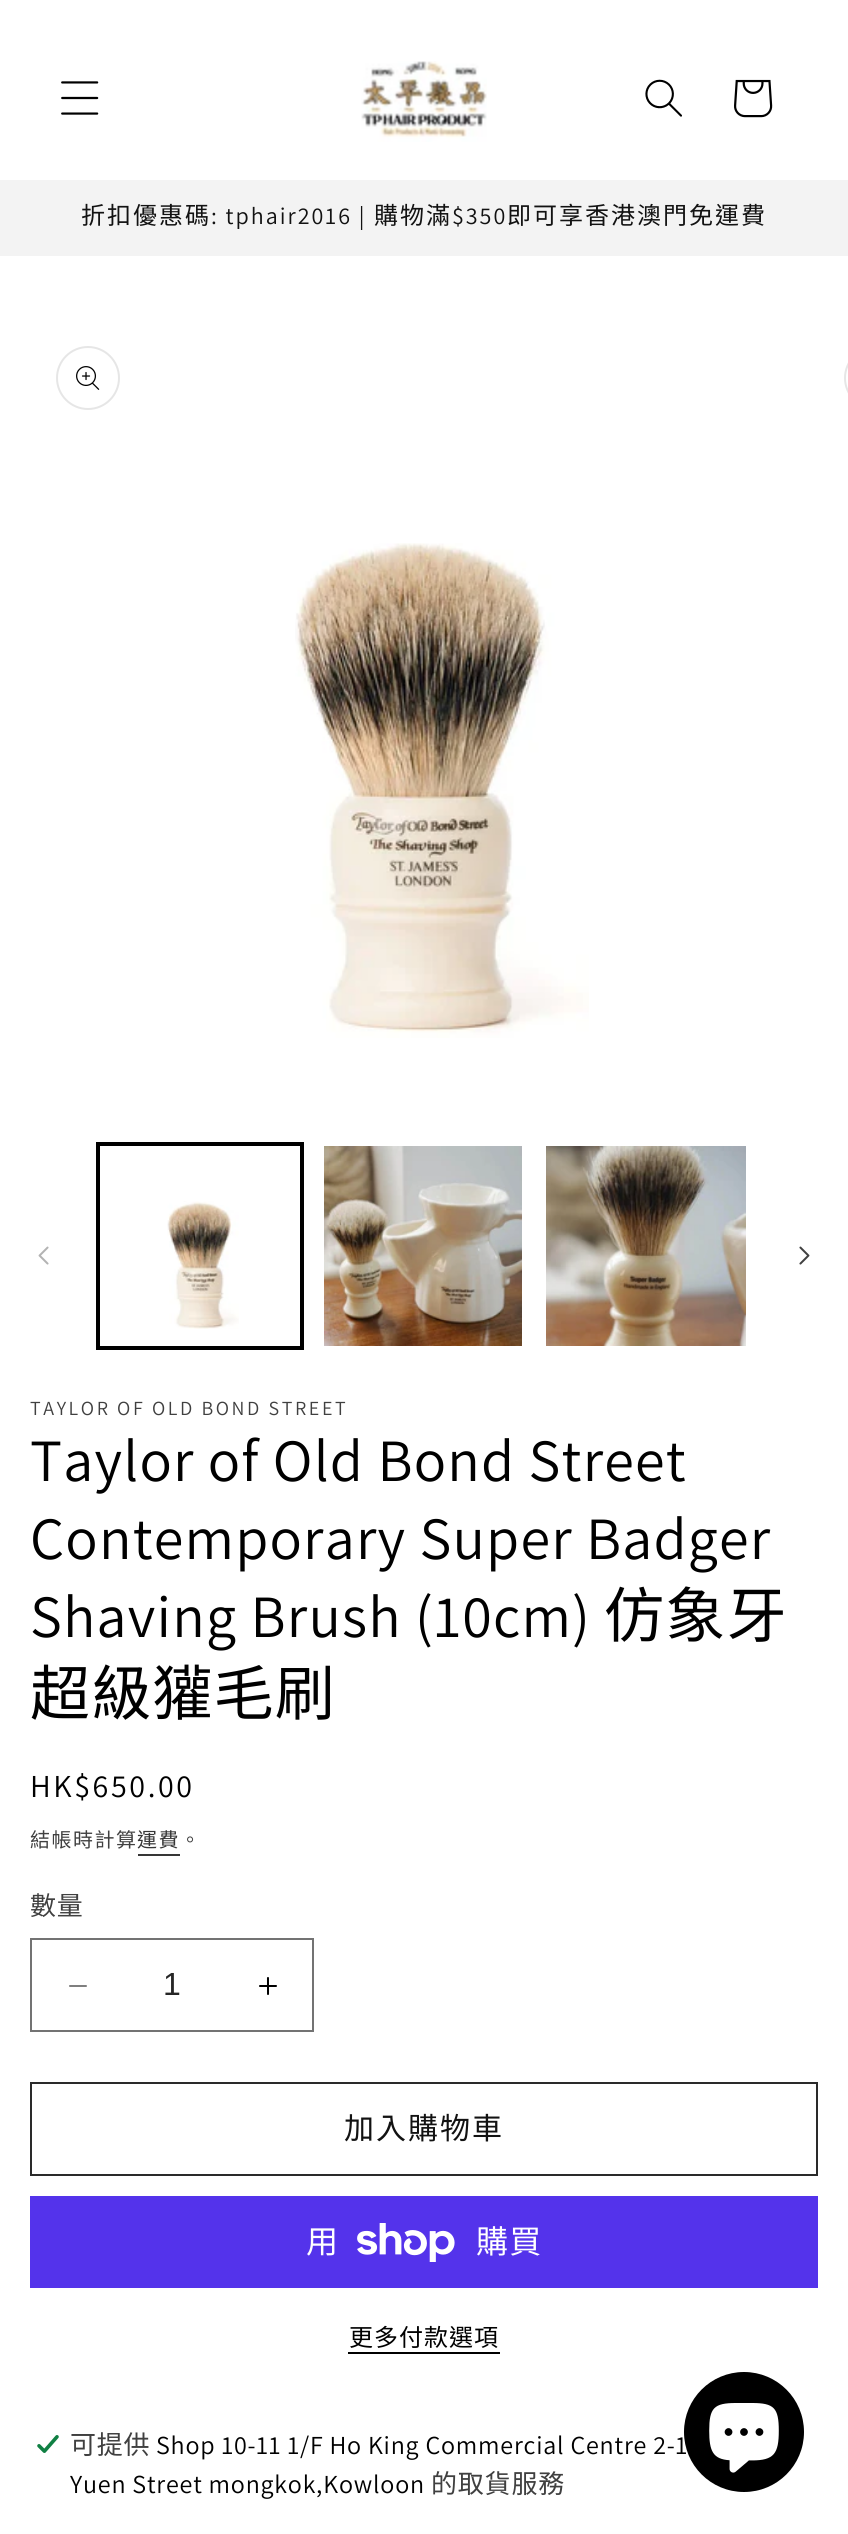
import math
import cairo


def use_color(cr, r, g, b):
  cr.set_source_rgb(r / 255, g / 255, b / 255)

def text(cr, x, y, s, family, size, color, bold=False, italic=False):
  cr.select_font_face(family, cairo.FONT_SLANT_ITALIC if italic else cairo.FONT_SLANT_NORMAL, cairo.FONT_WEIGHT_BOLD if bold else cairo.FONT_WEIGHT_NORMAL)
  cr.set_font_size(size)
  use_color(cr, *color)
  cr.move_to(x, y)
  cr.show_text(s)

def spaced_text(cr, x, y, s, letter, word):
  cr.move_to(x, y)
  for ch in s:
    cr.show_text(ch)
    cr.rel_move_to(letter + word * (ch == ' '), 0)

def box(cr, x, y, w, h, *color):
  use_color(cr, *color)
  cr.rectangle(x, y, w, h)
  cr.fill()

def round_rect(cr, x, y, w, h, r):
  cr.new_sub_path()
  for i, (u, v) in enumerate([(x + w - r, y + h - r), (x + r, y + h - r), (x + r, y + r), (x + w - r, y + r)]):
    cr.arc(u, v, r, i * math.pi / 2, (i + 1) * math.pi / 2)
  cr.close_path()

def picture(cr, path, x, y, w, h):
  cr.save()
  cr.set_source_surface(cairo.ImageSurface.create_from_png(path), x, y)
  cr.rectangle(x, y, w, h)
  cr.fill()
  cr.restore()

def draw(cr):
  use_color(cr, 255, 255, 255)
  cr.paint()
  picture(cr, "img_01.png", 61, 81, 38, 34)
  picture(cr, "img_02.png", 361, 61, 126, 81)
  picture(cr, "img_03.png", 645, 79, 37, 38)
  picture(cr, "img_04.png", 734, 79, 39, 39)
  box(cr, 0, 180, 848, 76, 243, 243, 243)
  cr.arc(88, 378, 31, 0, 2 * math.pi)
  use_color(cr, 230, 230, 230)
  cr.stroke()
  picture(cr, "img_05.png", 76, 366, 24, 24)
  picture(cr, "img_06.png", 295, 543, 294, 495)
  round_rect(cr, 845, 347, 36, 62, 31)
  cr.stroke()
  picture(cr, "img_07.png", 38, 1246, 11, 19)
  cr.rectangle(97, 1143, 206, 206)
  use_color(cr, 0, 0, 0)
  cr.stroke()
  cr.rectangle(99, 1145, 202, 202)
  cr.stroke()
  picture(cr, "img_08.png", 167, 1201, 72, 128)
  picture(cr, "img_09.png", 324, 1146, 198, 200)
  picture(cr, "img_10.png", 546, 1146, 200, 200)
  picture(cr, "img_11.png", 799, 1246, 11, 19)
  box(cr, 138, 1854, 42, 2, 54, 54, 54)
  picture(cr, "img_12.png", 69, 1985, 18, 2)
  picture(cr, "img_13.png", 259, 1977, 18, 18)
  cr.rectangle(31, 1939, 282, 92)
  use_color(cr, 115, 115, 115)
  cr.stroke()
  cr.rectangle(31, 2083, 786, 92)
  use_color(cr, 42, 42, 42)
  cr.stroke()
  box(cr, 30, 2196, 788, 92, 84, 51, 235)
  picture(cr, "img_14.png", 357, 2223, 98, 39)
  box(cr, 348, 2352, 152, 2, 0, 0, 0)
  picture(cr, "img_15.png", 37, 2435, 22, 18)
  cr.arc(744, 2432, 60, 0, 2 * math.pi)
  cr.fill()
  picture(cr, "img_16.png", 709, 2403, 70, 70)
  cr.select_font_face("Noto Sans CJK TC")
  cr.set_font_size(24)
  use_color(cr, 18, 18, 18)
  spaced_text(cr, 81, 224, "折扣優惠碼", 2, 0)
  cr.select_font_face("Assistant")
  spaced_text(cr, 211, 224, ": tphair2016 |", 2, 0)
  cr.select_font_face("Noto Sans CJK TC")
  spaced_text(cr, 374, 224, "購物滿", 2, 0)
  cr.select_font_face("Assistant")
  spaced_text(cr, 452, 224, "$350", 2, 0)
  cr.select_font_face("Noto Sans CJK TC")
  spaced_text(cr, 507, 224, "即可享香港澳門免運費", 2, 0)
  cr.select_font_face("Assistant")
  cr.set_font_size(20)
  use_color(cr, 64, 64, 64)
  spaced_text(cr, 30, 1415, "TAYLOR OF OLD BOND STREET", 2.6, 0)
  cr.set_font_size(60)
  use_color(cr, 0, 0, 0)
  spaced_text(cr, 30, 1481, "Taylor of Old Bond Street", 1.2, 0)
  spaced_text(cr, 30, 1559, "Contemporary Super Badger", 1.2, 0)
  spaced_text(cr, 30, 1637, "Shaving Brush (10cm)", 1.2, 0)
  cr.select_font_face("Noto Sans CJK TC")
  spaced_text(cr, 604, 1637, "仿象牙", 1.2, 0)
  spaced_text(cr, 30, 1715, "超級獾毛刷", 1.2, 0)
  cr.select_font_face("Assistant")
  cr.set_font_size(32)
  spaced_text(cr, 30, 1797, "HK$650.00", 2.6, 0)
  cr.select_font_face("Noto Sans CJK TC")
  cr.set_font_size(20)
  use_color(cr, 64, 64, 64)
  spaced_text(cr, 30, 1847, "結帳時計算", 1.5, 0)
  use_color(cr, 54, 54, 54)
  spaced_text(cr, 137, 1847, "運費", 1.5, 0)
  use_color(cr, 64, 64, 64)
  spaced_text(cr, 180, 1847, "。", 1.5, 0)
  cr.set_font_size(26)
  spaced_text(cr, 30, 1915, "數量", 0.8, 0)
  text(cr, 163, 1995, "1", "Liberation Sans", 32, (38, 38, 38))
  cr.select_font_face("Noto Sans CJK TC")
  cr.set_font_size(30)
  use_color(cr, 18, 18, 18)
  spaced_text(cr, 344, 2139, "加入購物車", 2, 0)
  cr.set_font_size(32)
  use_color(cr, 255, 255, 255)
  spaced_text(cr, 306, 2253, "用", 1.2, 0)
  spaced_text(cr, 476, 2253, "購買", 1.2, 0)
  cr.set_font_size(24)
  use_color(cr, 0, 0, 0)
  spaced_text(cr, 349, 2346, "更多付款選項", 1, 0)
  cr.set_font_size(26)
  use_color(cr, 64, 64, 64)
  spaced_text(cr, 70, 2454, "可提供", 0.8, 0)
  cr.select_font_face("Assistant")
  use_color(cr, 0, 0, 0)
  spaced_text(cr, 156, 2454, "Shop 10-11 1/F Ho King Commercial Centre 2-1", 0.8, 0)
  spaced_text(cr, 70, 2493, "Yuen Street mongkok,Kowloon", 0.8, 0)
  cr.select_font_face("Noto Sans CJK TC")
  use_color(cr, 64, 64, 64)
  spaced_text(cr, 431, 2493, "的取貨服務", 0.8, 0)


surface = cairo.ImageSurface(cairo.FORMAT_RGB24, 848, 2534)
cr = cairo.Context(surface)
options = cairo.FontOptions()
options.set_hint_metrics(cairo.HINT_METRICS_OFF)
options.set_hint_style(cairo.HINT_STYLE_NONE)
cr.set_font_options(options)
cr.set_miter_limit(4)
draw(cr)
surface.write_to_png("out.png")
